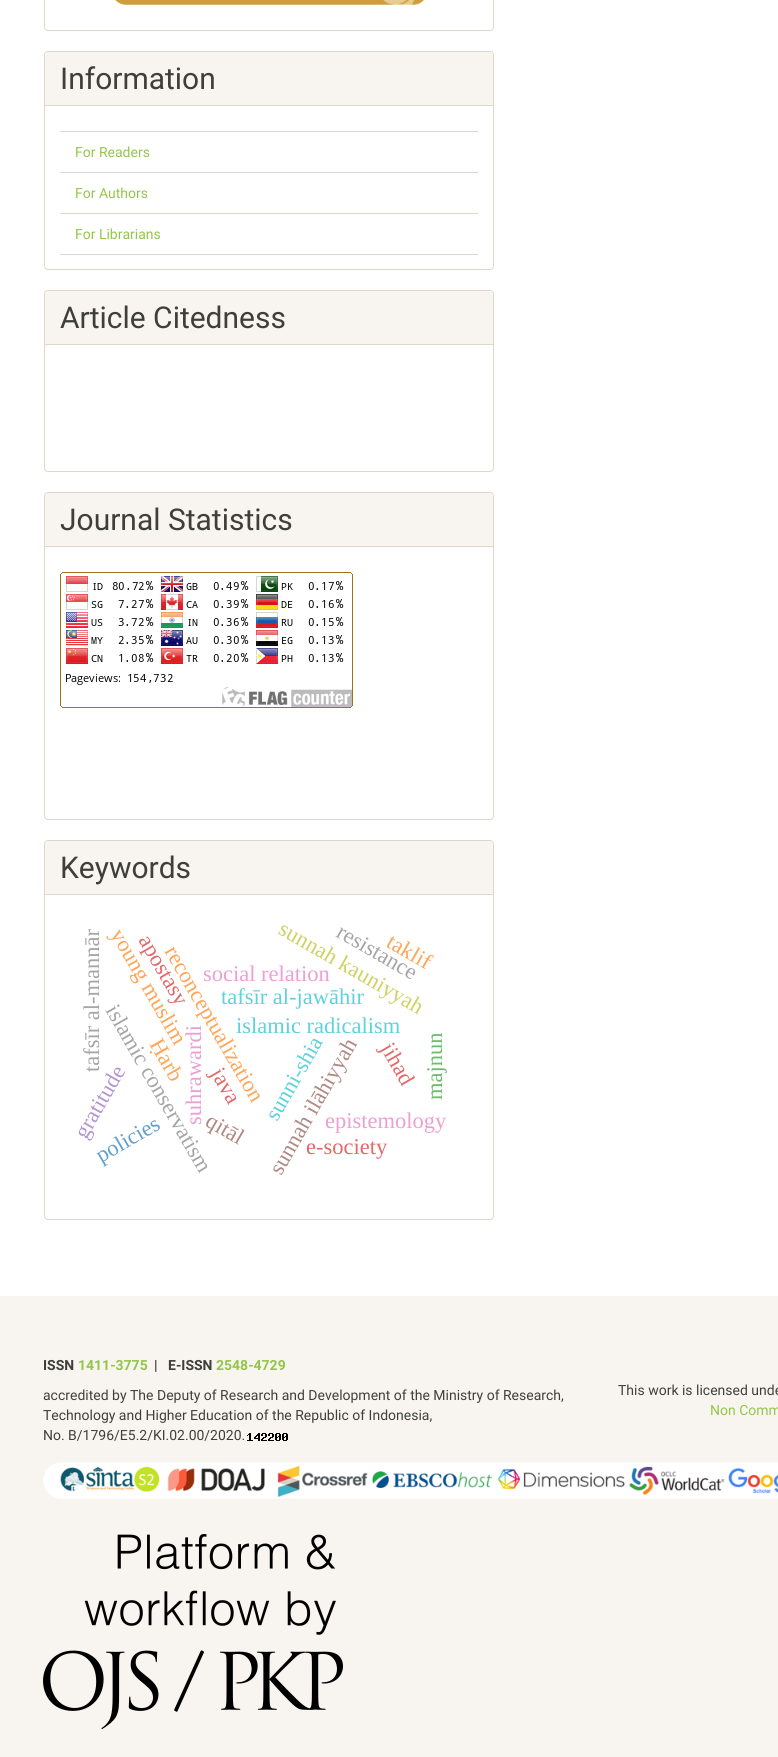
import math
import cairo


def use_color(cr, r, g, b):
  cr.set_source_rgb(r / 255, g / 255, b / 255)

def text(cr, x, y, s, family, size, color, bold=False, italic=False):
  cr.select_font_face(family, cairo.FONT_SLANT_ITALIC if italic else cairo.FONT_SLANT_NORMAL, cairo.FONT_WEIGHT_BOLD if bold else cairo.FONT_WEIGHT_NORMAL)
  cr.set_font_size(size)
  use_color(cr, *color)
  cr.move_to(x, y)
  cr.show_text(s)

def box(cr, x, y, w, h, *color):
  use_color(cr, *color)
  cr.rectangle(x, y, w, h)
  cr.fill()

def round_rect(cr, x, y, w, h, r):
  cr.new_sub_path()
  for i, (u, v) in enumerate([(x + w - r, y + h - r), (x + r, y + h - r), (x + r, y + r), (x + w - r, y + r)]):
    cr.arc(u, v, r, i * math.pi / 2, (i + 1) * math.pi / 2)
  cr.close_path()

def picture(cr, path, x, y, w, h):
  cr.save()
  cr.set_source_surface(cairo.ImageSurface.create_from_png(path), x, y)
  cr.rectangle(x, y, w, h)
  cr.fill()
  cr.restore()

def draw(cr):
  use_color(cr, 255, 255, 255)
  cr.paint()
  round_rect(cr, 44.5, -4.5, 449, 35, 3.5)
  use_color(cr, 223, 215, 202)
  cr.set_line_width(1)
  cr.stroke()
  picture(cr, "img_01.png", 115, 0, 309, 5)
  round_rect(cr, 44.5, 51.5, 449, 218, 3.5)
  cr.stroke()
  use_color(cr, 248, 245, 240)
  cr.new_path()
  cr.move_to(48, 52)
  cr.line_to(490, 52)
  cr.curve_to(491.5, 52, 493, 53.5, 493, 55)
  cr.line_to(493, 106)
  cr.line_to(45, 106)
  cr.line_to(45, 55)
  cr.curve_to(45, 53.5, 46.5, 52, 48, 52)
  cr.close_path()
  cr.fill()
  box(cr, 45, 105, 448, 1, 223, 215, 202)
  box(cr, 60, 131, 418, 1, 223, 215, 202)
  box(cr, 60, 172, 418, 1, 223, 215, 202)
  box(cr, 60, 213, 418, 1, 223, 215, 202)
  box(cr, 60, 254, 418, 1, 223, 215, 202)
  round_rect(cr, 44.5, 290.5, 449, 181, 3.5)
  cr.stroke()
  use_color(cr, 248, 245, 240)
  cr.new_path()
  cr.move_to(48, 291)
  cr.line_to(490, 291)
  cr.curve_to(491.5, 291, 493, 292.5, 493, 294)
  cr.line_to(493, 345)
  cr.line_to(45, 345)
  cr.line_to(45, 294)
  cr.curve_to(45, 292.5, 46.5, 291, 48, 291)
  cr.close_path()
  cr.fill()
  box(cr, 45, 344, 448, 1, 223, 215, 202)
  round_rect(cr, 44.5, 492.5, 449, 327, 3.5)
  cr.stroke()
  use_color(cr, 248, 245, 240)
  cr.new_path()
  cr.move_to(48, 493)
  cr.line_to(490, 493)
  cr.curve_to(491.5, 493, 493, 494.5, 493, 496)
  cr.line_to(493, 547)
  cr.line_to(45, 547)
  cr.line_to(45, 496)
  cr.curve_to(45, 494.5, 46.5, 493, 48, 493)
  cr.close_path()
  cr.fill()
  box(cr, 45, 546, 448, 1, 223, 215, 202)
  picture(cr, "img_02.png", 60, 572, 293, 136)
  round_rect(cr, 44.5, 840.5, 449, 379, 3.5)
  cr.stroke()
  use_color(cr, 248, 245, 240)
  cr.new_path()
  cr.move_to(48, 841)
  cr.line_to(490, 841)
  cr.curve_to(491.5, 841, 493, 842.5, 493, 844)
  cr.line_to(493, 895)
  cr.line_to(45, 895)
  cr.line_to(45, 844)
  cr.curve_to(45, 842.5, 46.5, 841, 48, 841)
  cr.close_path()
  cr.fill()
  box(cr, 45, 894, 448, 1, 223, 215, 202)
  box(cr, 0, 1296, 778, 461, 248, 245, 240)
  picture(cr, "img_03.png", 247, 1433, 41, 8)
  picture(cr, "img_04.png", 43, 1462, 735, 37)
  picture(cr, "img_05.png", 43, 1534, 300, 195)
  text(cr, 60, 89, "Information", "Roboto", 30, (62, 63, 58))
  text(cr, 75, 157, "For Readers", "Roboto", 14, (147, 197, 75))
  text(cr, 75, 198, "For Authors", "Roboto", 14, (147, 197, 75))
  text(cr, 75, 239, "For Librarians", "Roboto", 14, (147, 197, 75))
  text(cr, 60, 328, "Article Citedness", "Roboto", 30, (62, 63, 58))
  text(cr, 60, 530, "Journal Statistics", "Roboto", 30, (62, 63, 58))
  text(cr, 60, 878, "Keywords", "Roboto", 30, (62, 63, 58))
  cr.save()
  cr.translate(99, 1072)
  cr.rotate(-90 * math.pi / 180)
  text(cr, 0, 0, "tafsīr al-mannār", "Liberation Serif", 22.5, (165, 165, 165))
  cr.restore()
  text(cr, 236, 1033, "islamic radicalism", "Liberation Serif", 22.5, (93, 210, 221))
  cr.save()
  cr.translate(201, 1125)
  cr.rotate(-90 * math.pi / 180)
  text(cr, 0, 0, "suhrawardi", "Liberation Serif", 22.5, (235, 160, 212))
  cr.restore()
  cr.save()
  cr.translate(105, 1010)
  cr.rotate(60 * math.pi / 180)
  text(cr, 0, 0, "islamic conservatism", "Liberation Serif", 22.5, (165, 165, 165))
  cr.restore()
  cr.save()
  cr.translate(164, 951)
  cr.rotate(60 * math.pi / 180)
  text(cr, 0, 0, "reconceptualization", "Liberation Serif", 22.5, (255, 165, 86))
  cr.restore()
  text(cr, 203, 981, "social relation", "Liberation Serif", 22.5, (235, 160, 212))
  cr.save()
  cr.translate(277, 933)
  cr.rotate(30 * math.pi / 180)
  text(cr, 0, 0, "sunnah kauniyyah", "Liberation Serif", 22.5, (208, 209, 100))
  cr.restore()
  cr.save()
  cr.translate(335, 936)
  cr.rotate(30 * math.pi / 180)
  text(cr, 0, 0, "resistance", "Liberation Serif", 22.5, (165, 165, 165))
  cr.restore()
  cr.save()
  cr.translate(385, 946)
  cr.rotate(30 * math.pi / 180)
  text(cr, 0, 0, "taklif", "Liberation Serif", 22.5, (255, 165, 86))
  cr.restore()
  cr.save()
  cr.translate(110, 934)
  cr.rotate(60 * math.pi / 180)
  text(cr, 0, 0, "young muslim", "Liberation Serif", 22.5, (255, 165, 86))
  cr.restore()
  cr.save()
  cr.translate(138, 940)
  cr.rotate(60 * math.pi / 180)
  text(cr, 0, 0, "apostasy", "Liberation Serif", 22.5, (226, 104, 105))
  cr.restore()
  cr.save()
  cr.translate(149, 1044)
  cr.rotate(60 * math.pi / 180)
  text(cr, 0, 0, "Ḥarb", "Liberation Serif", 22.5, (255, 165, 86))
  cr.restore()
  text(cr, 221, 1004, "tafsīr al-jawāhir", "Liberation Serif", 22.5, (93, 210, 221))
  cr.save()
  cr.translate(277, 1122)
  cr.rotate(-60 * math.pi / 180)
  text(cr, 0, 0, "sunni-shia", "Liberation Serif", 22.5, (93, 210, 221))
  cr.restore()
  cr.save()
  cr.translate(442, 1100)
  cr.rotate(-90 * math.pi / 180)
  text(cr, 0, 0, "majnun", "Liberation Serif", 22.5, (107, 189, 107))
  cr.restore()
  cr.save()
  cr.translate(210, 1073)
  cr.rotate(60 * math.pi / 180)
  text(cr, 0, 0, "java", "Liberation Serif", 22.5, (226, 104, 105))
  cr.restore()
  cr.save()
  cr.translate(281, 1176)
  cr.rotate(-60 * math.pi / 180)
  text(cr, 0, 0, "sunnah ilāhiyyah", "Liberation Serif", 22.5, (175, 137, 129))
  cr.restore()
  cr.save()
  cr.translate(380, 1048)
  cr.rotate(60 * math.pi / 180)
  text(cr, 0, 0, "jihad", "Liberation Serif", 22.5, (226, 104, 105))
  cr.restore()
  cr.save()
  cr.translate(101, 1163)
  cr.rotate(-30 * math.pi / 180)
  text(cr, 0, 0, "policies", "Liberation Serif", 22.5, (98, 160, 203))
  cr.restore()
  cr.save()
  cr.translate(86, 1140)
  cr.rotate(-60 * math.pi / 180)
  text(cr, 0, 0, "gratitude", "Liberation Serif", 22.5, (180, 149, 209))
  cr.restore()
  cr.save()
  cr.translate(204, 1125)
  cr.rotate(30 * math.pi / 180)
  text(cr, 0, 0, "qitāl", "Liberation Serif", 22.5, (175, 137, 129))
  cr.restore()
  text(cr, 325, 1128, "epistemology", "Liberation Serif", 22.5, (235, 160, 212))
  text(cr, 306, 1154, "e-society", "Liberation Serif", 22.5, (226, 104, 105))
  text(cr, 43, 1370, "ISSN", "Roboto", 14, (62, 63, 58), bold=True)
  text(cr, 78, 1370, "1411-3775", "Roboto", 14, (147, 197, 75), bold=True)
  text(cr, 154, 1370, "|   E-ISSN", "Roboto", 14, (62, 63, 58), bold=True)
  text(cr, 216, 1370, "2548-4729", "Roboto", 14, (147, 197, 75), bold=True)
  text(cr, 43, 1400, "accredited by The Deputy of Research and Development of the Ministry of Research,", "Roboto", 14, (62, 63, 58))
  text(cr, 43, 1420, "Technology and Higher Education of the Republic of Indonesia,", "Roboto", 14, (62, 63, 58))
  text(cr, 43, 1440, "No. B/1796/E5.2/KI.02.00/2020.", "Roboto", 14, (62, 63, 58))
  text(cr, 618, 1395, "This work is licensed unde", "Roboto", 14, (62, 63, 58))
  text(cr, 710, 1415, "Non Comm", "Roboto", 14, (147, 197, 75))


surface = cairo.ImageSurface(cairo.FORMAT_RGB24, 778, 1757)
cr = cairo.Context(surface)
options = cairo.FontOptions()
options.set_hint_metrics(cairo.HINT_METRICS_OFF)
options.set_hint_style(cairo.HINT_STYLE_NONE)
cr.set_font_options(options)
cr.set_miter_limit(4)
draw(cr)
surface.write_to_png("out.png")
